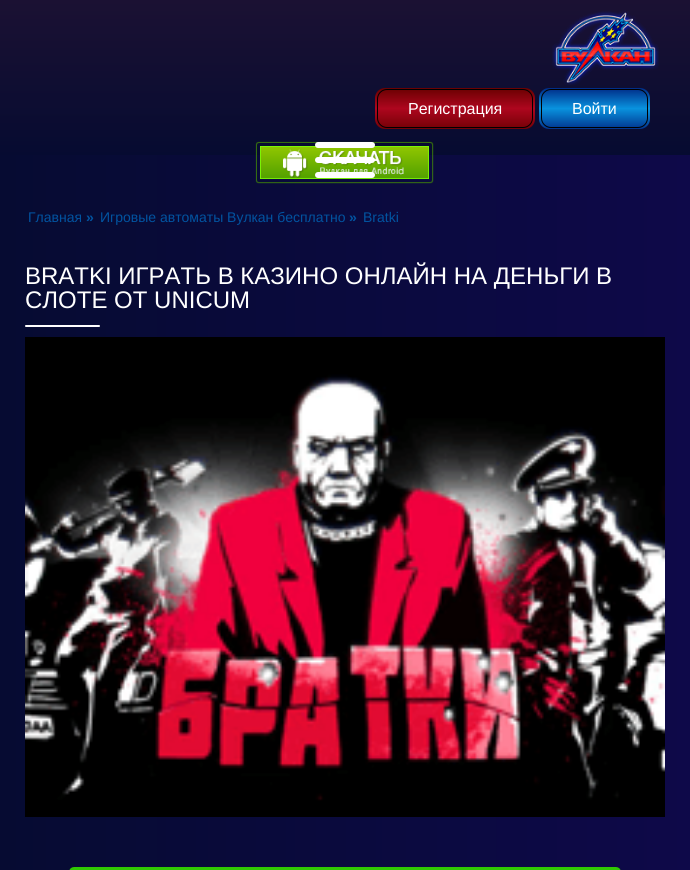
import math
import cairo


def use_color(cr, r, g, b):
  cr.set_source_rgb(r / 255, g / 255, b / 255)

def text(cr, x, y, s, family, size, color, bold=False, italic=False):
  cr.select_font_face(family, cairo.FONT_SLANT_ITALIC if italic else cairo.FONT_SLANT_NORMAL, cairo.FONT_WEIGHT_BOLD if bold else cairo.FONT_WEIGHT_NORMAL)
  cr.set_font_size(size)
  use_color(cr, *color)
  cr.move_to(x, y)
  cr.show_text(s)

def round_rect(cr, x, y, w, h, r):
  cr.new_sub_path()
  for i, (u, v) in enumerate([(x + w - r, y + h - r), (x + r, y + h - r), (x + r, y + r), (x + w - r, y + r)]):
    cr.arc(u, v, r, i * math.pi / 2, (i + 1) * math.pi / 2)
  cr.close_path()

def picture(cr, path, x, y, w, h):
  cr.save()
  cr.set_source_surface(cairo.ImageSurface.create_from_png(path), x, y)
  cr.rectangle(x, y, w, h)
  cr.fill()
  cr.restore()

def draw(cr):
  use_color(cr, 255, 255, 255)
  cr.paint()
  gradient = cairo.LinearGradient(0, 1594, 690, 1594)
  gradient.add_color_stop_rgba(0, 0.024, 0.043, 0.196, 1)
  gradient.add_color_stop_rgba(1, 0.055, 0.035, 0.286, 1)
  cr.set_source(gradient)
  cr.rectangle(0, 155, 690, 715)
  cr.fill()
  gradient = cairo.LinearGradient(345, 155, 345, 0)
  gradient.add_color_stop_rgba(0, 0.024, 0.043, 0.192, 1)
  gradient.add_color_stop_rgba(1, 0.106, 0.067, 0.2, 1)
  cr.set_source(gradient)
  cr.rectangle(0, 0, 690, 155)
  cr.fill()
  picture(cr, "img_01.png", 552, 10, 107, 75)
  gradient = cairo.LinearGradient(455, 129, 455, 88)
  gradient.add_color_stop_rgba(0, 0.451, 0.004, 0.024, 1)
  gradient.add_color_stop_rgba(0.5, 0.682, 0.024, 0.118, 1)
  gradient.add_color_stop_rgba(1, 0.412, 0.004, 0.004, 1)
  cr.set_source(gradient)
  round_rect(cr, 375, 88, 160, 41, 10)
  cr.fill()
  round_rect(cr, 377.5, 89.5, 155, 38, 9.5)
  use_color(cr, 0, 0, 0)
  cr.set_line_width(1)
  cr.stroke()
  gradient = cairo.LinearGradient(595, 129, 595, 88)
  gradient.add_color_stop_rgba(0, 0.004, 0.204, 0.557, 1)
  gradient.add_color_stop_rgba(0.5, 0.035, 0.573, 0.871, 1)
  gradient.add_color_stop_rgba(1, 0, 0.169, 0.529, 1)
  cr.set_source(gradient)
  round_rect(cr, 539, 88, 111, 41, 10)
  cr.fill()
  round_rect(cr, 541.5, 89.5, 106, 38, 9.5)
  use_color(cr, 0, 0, 0)
  cr.stroke()
  picture(cr, "img_02.png", 255, 141, 179, 43)
  use_color(cr, 255, 255, 255)
  round_rect(cr, 315, 142, 60, 6, 3)
  cr.fill()
  round_rect(cr, 315, 157, 60, 6, 3)
  cr.fill()
  round_rect(cr, 315, 172, 60, 6, 3)
  cr.fill()
  round_rect(cr, 25, 325, 75, 2, 1)
  cr.fill()
  picture(cr, "img_03.png", 25, 337, 640, 480)
  round_rect(cr, 70.5, 868.5, 549, 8, 3.5)
  use_color(cr, 48, 201, 2)
  cr.set_line_width(3)
  cr.stroke()
  text(cr, 408, 114, "Регистрация", "Liberation Sans", 16, (255, 255, 255))
  text(cr, 572, 114, "Войти", "Liberation Sans", 16, (255, 255, 255))
  text(cr, 28, 222, "Главная", "Liberation Sans", 14, (1, 83, 160))
  text(cr, 86, 222, "»", "Liberation Sans", 14, (1, 83, 160), bold=True)
  text(cr, 100, 222, "Игровые автоматы Вулкан бесплатно", "Liberation Sans", 14, (1, 83, 160))
  text(cr, 349, 222, "»", "Liberation Sans", 14, (1, 83, 160), bold=True)
  text(cr, 363, 222, "Bratki", "Liberation Sans", 14, (1, 83, 160))
  text(cr, 25, 284, "BRATKI ИГРАТЬ В КАЗИНО ОНЛАЙН НА ДЕНЬГИ В", "Liberation Sans", 24, (255, 255, 255))
  text(cr, 25, 308, "СЛОТЕ ОТ UNICUM", "Liberation Sans", 24, (255, 255, 255))


surface = cairo.ImageSurface(cairo.FORMAT_RGB24, 690, 870)
cr = cairo.Context(surface)
options = cairo.FontOptions()
options.set_hint_metrics(cairo.HINT_METRICS_OFF)
options.set_hint_style(cairo.HINT_STYLE_NONE)
cr.set_font_options(options)
cr.set_miter_limit(4)
draw(cr)
surface.write_to_png("out.png")
